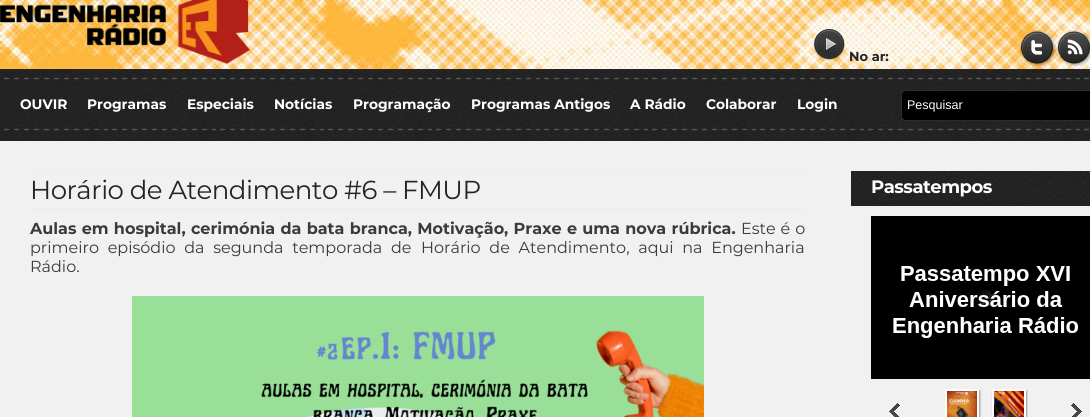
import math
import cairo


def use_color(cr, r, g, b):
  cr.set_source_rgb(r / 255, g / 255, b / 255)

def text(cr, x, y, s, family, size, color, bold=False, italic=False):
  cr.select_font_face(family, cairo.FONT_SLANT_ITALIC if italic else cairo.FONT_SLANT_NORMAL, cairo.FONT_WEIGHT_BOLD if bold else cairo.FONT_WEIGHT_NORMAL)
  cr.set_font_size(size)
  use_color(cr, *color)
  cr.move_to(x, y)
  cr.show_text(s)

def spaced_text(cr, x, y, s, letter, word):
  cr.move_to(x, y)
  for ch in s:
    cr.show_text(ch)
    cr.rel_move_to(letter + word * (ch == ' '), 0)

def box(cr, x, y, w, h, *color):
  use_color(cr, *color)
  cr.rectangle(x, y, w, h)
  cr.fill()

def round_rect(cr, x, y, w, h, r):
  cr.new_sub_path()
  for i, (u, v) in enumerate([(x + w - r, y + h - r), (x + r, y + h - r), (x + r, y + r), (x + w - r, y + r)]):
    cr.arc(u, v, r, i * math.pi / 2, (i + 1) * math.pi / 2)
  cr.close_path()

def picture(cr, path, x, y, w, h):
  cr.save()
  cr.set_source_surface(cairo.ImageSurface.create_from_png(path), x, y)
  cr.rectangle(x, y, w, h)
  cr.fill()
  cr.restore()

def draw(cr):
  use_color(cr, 255, 255, 255)
  cr.paint()
  picture(cr, "img_01.png", 0, 0, 1090, 69)
  picture(cr, "img_02.png", 0, 0, 250, 64)
  picture(cr, "img_03.png", 813, 29, 32, 32)
  picture(cr, "img_04.png", 1019, 30, 37, 36)
  picture(cr, "img_05.png", 1056, 30, 34, 36)
  picture(cr, "img_06.png", 0, 69, 1090, 72)
  use_color(cr, 0, 0, 0)
  round_rect(cr, 901.5, 90.5, 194, 30, 4.5)
  cr.fill_preserve()
  use_color(cr, 43, 44, 44)
  cr.set_line_width(1)
  cr.stroke()
  box(cr, 0, 141, 1090, 276, 241, 241, 241)
  box(cr, 30, 171, 775, 1, 237, 237, 237)
  box(cr, 30, 208, 775, 1, 237, 237, 237)
  picture(cr, "img_07.png", 132, 296, 572, 121)
  picture(cr, "img_08.png", 851, 171, 239, 35)
  picture(cr, "img_09.png", 871, 216, 219, 201)
  text(cr, 849, 61, "No ar:", "Montserrat", 13, (36, 35, 38), bold=True)
  text(cr, 20, 109, "OUVIR", "Montserrat", 13.75, (255, 255, 255), bold=True)
  text(cr, 87, 109, "Programas", "Montserrat", 13.75, (255, 255, 255), bold=True)
  text(cr, 187, 109, "Especiais", "Montserrat", 13.75, (255, 255, 255), bold=True)
  text(cr, 274, 109, "Notícias", "Montserrat", 13.75, (255, 255, 255), bold=True)
  text(cr, 353, 109, "Programação", "Montserrat", 13.75, (255, 255, 255), bold=True)
  text(cr, 471, 109, "Programas Antigos", "Montserrat", 13.75, (255, 255, 255), bold=True)
  text(cr, 630, 109, "A Rádio", "Montserrat", 13.75, (255, 255, 255), bold=True)
  text(cr, 706, 109, "Colaborar", "Montserrat", 13.75, (255, 255, 255), bold=True)
  text(cr, 797, 109, "Login", "Montserrat", 13.75, (255, 255, 255), bold=True)
  text(cr, 907, 109, "Pesquisar", "Liberation Sans", 12.5, (255, 255, 255))
  cr.select_font_face("Montserrat")
  cr.set_font_size(26)
  use_color(cr, 36, 35, 38)
  spaced_text(cr, 30, 199, "Horário de Atendimento #6 – FMUP", -0.5, 0)
  cr.select_font_face("Montserrat", cairo.FONT_SLANT_NORMAL, cairo.FONT_WEIGHT_BOLD)
  cr.set_font_size(16)
  use_color(cr, 59, 59, 59)
  spaced_text(cr, 30, 234, "Aulas em hospital, cerimónia da bata branca, Motivação, Praxe e uma nova rúbrica.", 0, 0.75)
  cr.select_font_face("Montserrat")
  spaced_text(cr, 741, 234, "Este é o", 0, 0.75)
  spaced_text(cr, 30, 253, "primeiro episódio da segunda temporada de", 0, 4.5)
  spaced_text(cr, 421, 253, "Horário de Atendimento, aqui na Engenharia", 0, 4.5)
  text(cr, 30, 272, "Rádio.", "Montserrat", 16, (59, 59, 59))
  cr.select_font_face("Montserrat", cairo.FONT_SLANT_NORMAL, cairo.FONT_WEIGHT_BOLD)
  cr.set_font_size(18)
  use_color(cr, 255, 255, 255)
  spaced_text(cr, 871, 193, "Passatempos", -0.5, 0)


surface = cairo.ImageSurface(cairo.FORMAT_RGB24, 1090, 417)
cr = cairo.Context(surface)
options = cairo.FontOptions()
options.set_hint_metrics(cairo.HINT_METRICS_OFF)
options.set_hint_style(cairo.HINT_STYLE_NONE)
cr.set_font_options(options)
cr.set_miter_limit(4)
draw(cr)
surface.write_to_png("out.png")
